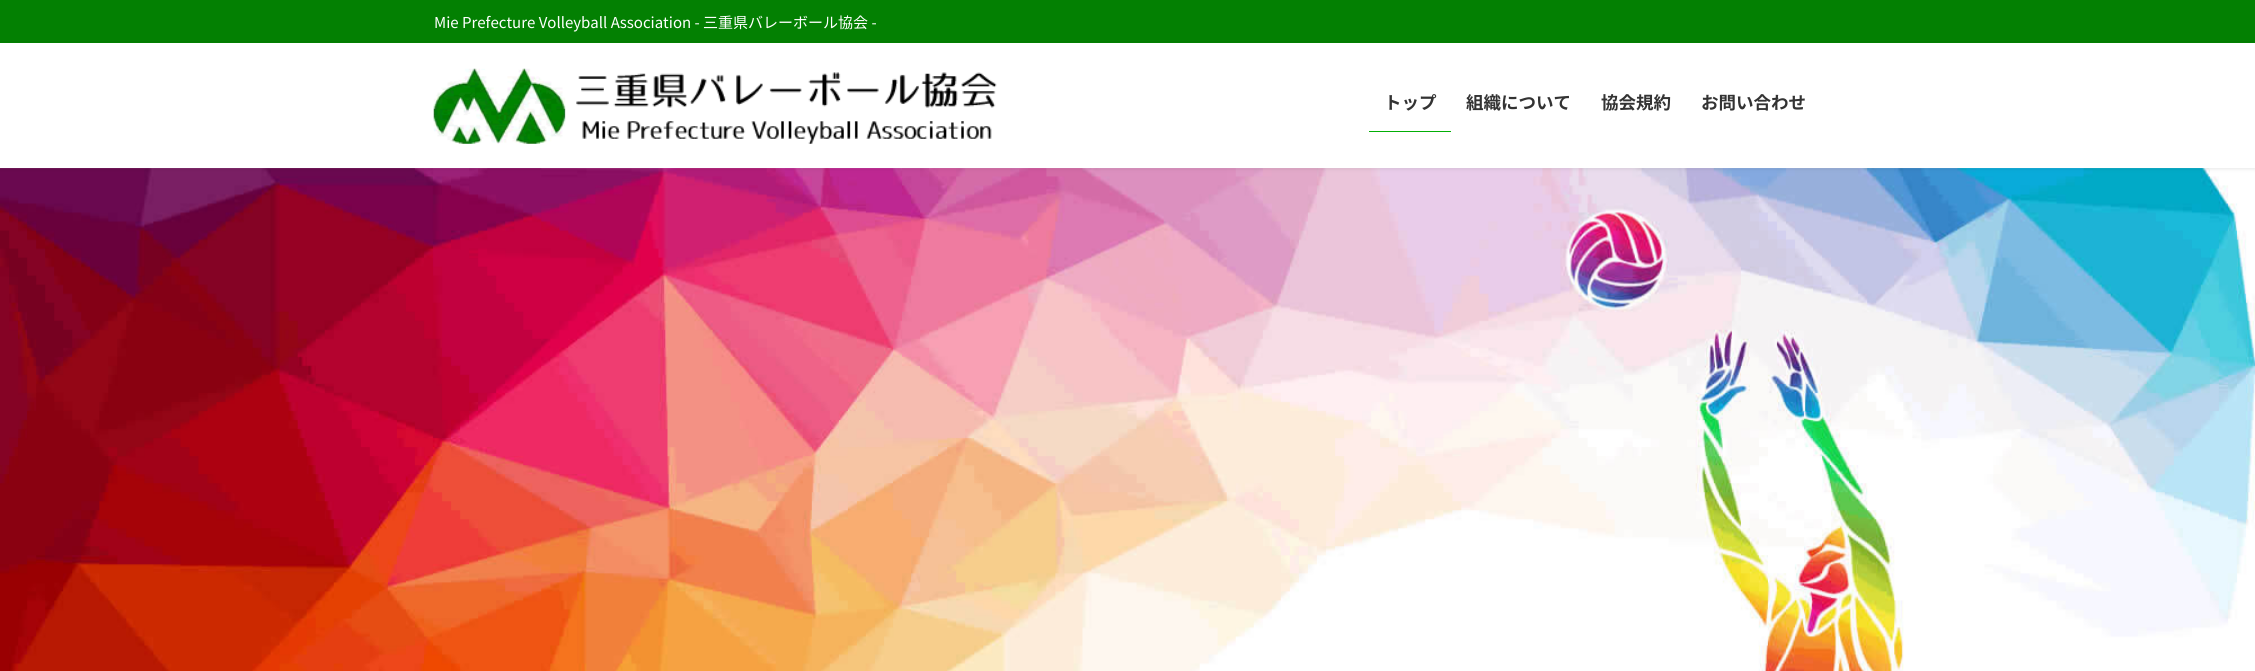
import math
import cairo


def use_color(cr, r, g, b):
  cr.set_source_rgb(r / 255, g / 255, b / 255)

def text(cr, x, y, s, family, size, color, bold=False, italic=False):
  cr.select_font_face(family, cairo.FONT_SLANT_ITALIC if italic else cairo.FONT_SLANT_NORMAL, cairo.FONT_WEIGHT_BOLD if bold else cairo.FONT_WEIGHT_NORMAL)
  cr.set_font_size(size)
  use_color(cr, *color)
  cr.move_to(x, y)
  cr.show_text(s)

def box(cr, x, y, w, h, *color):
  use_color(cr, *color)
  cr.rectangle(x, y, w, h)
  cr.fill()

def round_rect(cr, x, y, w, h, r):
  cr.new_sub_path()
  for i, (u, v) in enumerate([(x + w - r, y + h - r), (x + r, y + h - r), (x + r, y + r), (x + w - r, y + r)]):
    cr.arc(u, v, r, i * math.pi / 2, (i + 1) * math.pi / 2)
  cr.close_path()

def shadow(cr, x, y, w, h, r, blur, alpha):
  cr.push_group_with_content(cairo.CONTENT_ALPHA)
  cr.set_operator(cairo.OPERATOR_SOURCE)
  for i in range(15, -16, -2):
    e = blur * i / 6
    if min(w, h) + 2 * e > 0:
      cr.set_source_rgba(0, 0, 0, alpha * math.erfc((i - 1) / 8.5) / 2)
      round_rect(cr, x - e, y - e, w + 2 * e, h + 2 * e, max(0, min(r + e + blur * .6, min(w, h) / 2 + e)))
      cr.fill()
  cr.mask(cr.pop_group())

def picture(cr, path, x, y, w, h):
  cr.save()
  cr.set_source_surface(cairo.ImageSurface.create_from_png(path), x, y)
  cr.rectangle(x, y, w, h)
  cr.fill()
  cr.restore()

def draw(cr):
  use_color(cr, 255, 255, 255)
  cr.paint()
  picture(cr, "img_02.png", 0, 168, 2255, 503)
  use_color(cr, 0, 0, 0)
  shadow(cr, 0, -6, 2255, 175, 0, 2, 0.1)
  box(cr, 0, 43, 2255, 125, 255, 255, 255)
  box(cr, 0, 0, 2255, 43, 3, 128, 2)
  box(cr, 0, 41, 2255, 1, 3, 123, 2)
  picture(cr, "img_01.png", 433, 68, 564, 76)
  box(cr, 1369, 131, 82, 1, 3, 175, 6)
  text(cr, 434, 28, "Mie Prefecture Volleyball Association - 三重県バレーボール協会 -", "Noto Sans JP", 15, (255, 255, 255))
  text(cr, 1384, 109, "トップ", "Noto Sans JP", 17.5, (51, 51, 51), bold=True)
  text(cr, 1466, 109, "組織について", "Noto Sans JP", 17.5, (51, 51, 51), bold=True)
  text(cr, 1601, 109, "協会規約", "Noto Sans JP", 17.5, (51, 51, 51), bold=True)
  text(cr, 1701, 109, "お問い合わせ", "Noto Sans JP", 17.5, (51, 51, 51), bold=True)


surface = cairo.ImageSurface(cairo.FORMAT_RGB24, 2255, 671)
cr = cairo.Context(surface)
options = cairo.FontOptions()
options.set_hint_metrics(cairo.HINT_METRICS_OFF)
options.set_hint_style(cairo.HINT_STYLE_NONE)
cr.set_font_options(options)
cr.set_miter_limit(4)
draw(cr)
surface.write_to_png("out.png")
